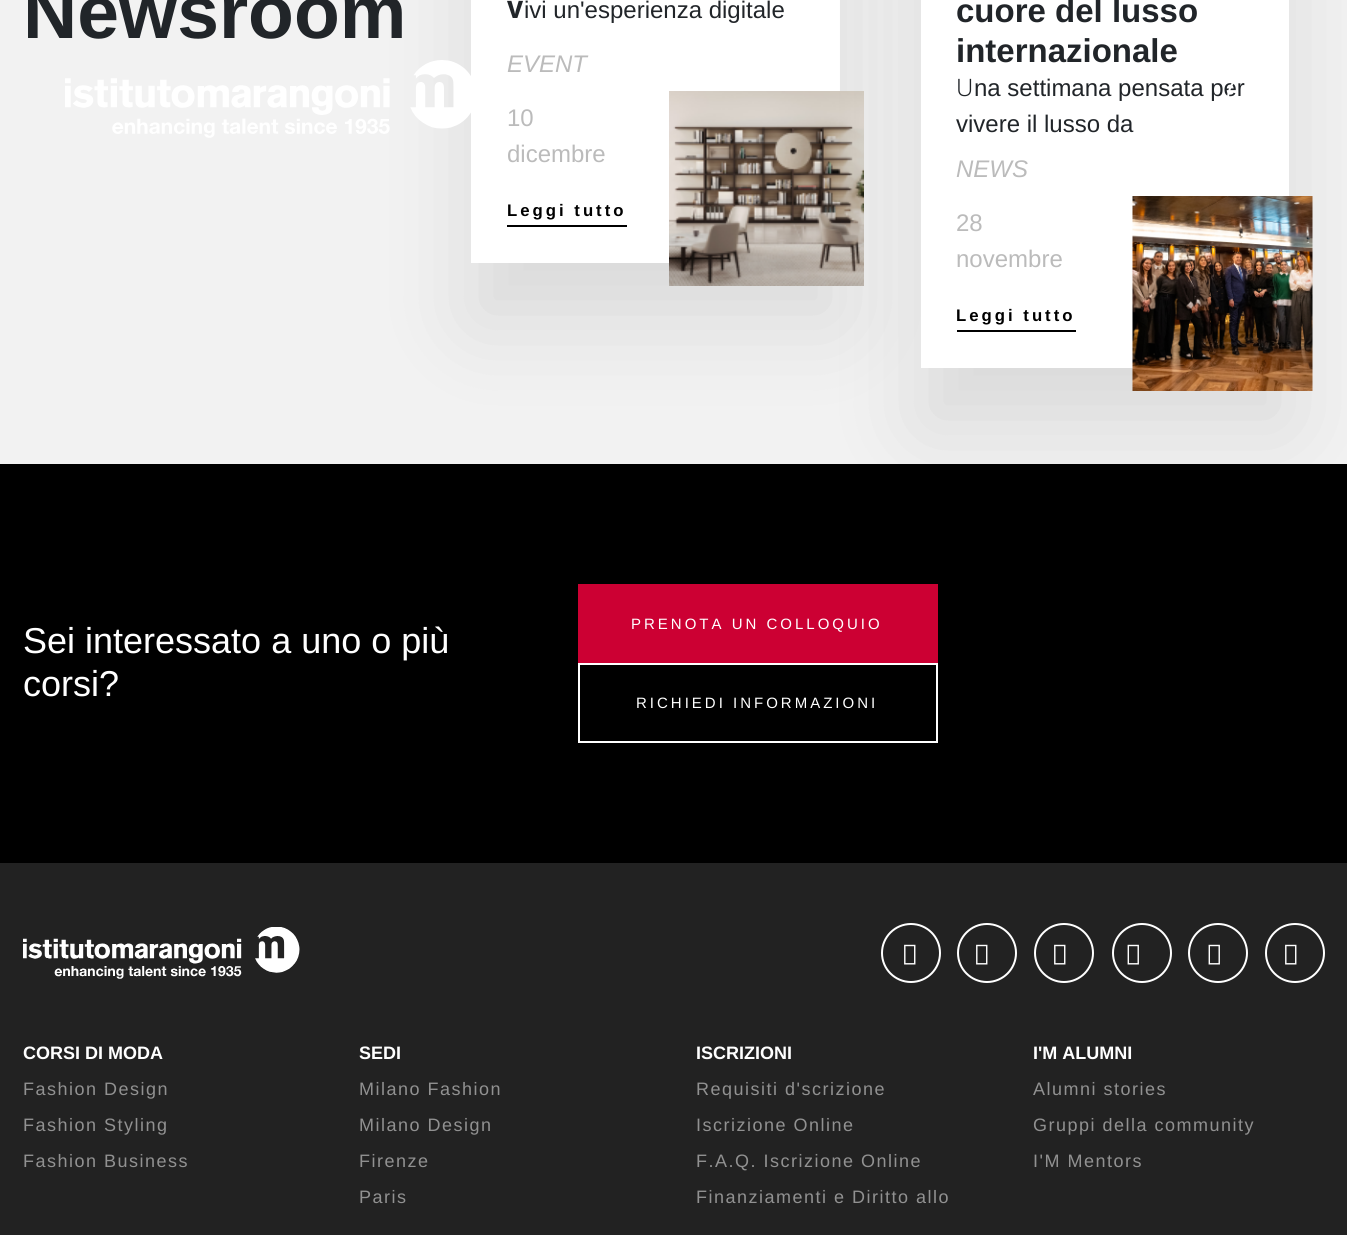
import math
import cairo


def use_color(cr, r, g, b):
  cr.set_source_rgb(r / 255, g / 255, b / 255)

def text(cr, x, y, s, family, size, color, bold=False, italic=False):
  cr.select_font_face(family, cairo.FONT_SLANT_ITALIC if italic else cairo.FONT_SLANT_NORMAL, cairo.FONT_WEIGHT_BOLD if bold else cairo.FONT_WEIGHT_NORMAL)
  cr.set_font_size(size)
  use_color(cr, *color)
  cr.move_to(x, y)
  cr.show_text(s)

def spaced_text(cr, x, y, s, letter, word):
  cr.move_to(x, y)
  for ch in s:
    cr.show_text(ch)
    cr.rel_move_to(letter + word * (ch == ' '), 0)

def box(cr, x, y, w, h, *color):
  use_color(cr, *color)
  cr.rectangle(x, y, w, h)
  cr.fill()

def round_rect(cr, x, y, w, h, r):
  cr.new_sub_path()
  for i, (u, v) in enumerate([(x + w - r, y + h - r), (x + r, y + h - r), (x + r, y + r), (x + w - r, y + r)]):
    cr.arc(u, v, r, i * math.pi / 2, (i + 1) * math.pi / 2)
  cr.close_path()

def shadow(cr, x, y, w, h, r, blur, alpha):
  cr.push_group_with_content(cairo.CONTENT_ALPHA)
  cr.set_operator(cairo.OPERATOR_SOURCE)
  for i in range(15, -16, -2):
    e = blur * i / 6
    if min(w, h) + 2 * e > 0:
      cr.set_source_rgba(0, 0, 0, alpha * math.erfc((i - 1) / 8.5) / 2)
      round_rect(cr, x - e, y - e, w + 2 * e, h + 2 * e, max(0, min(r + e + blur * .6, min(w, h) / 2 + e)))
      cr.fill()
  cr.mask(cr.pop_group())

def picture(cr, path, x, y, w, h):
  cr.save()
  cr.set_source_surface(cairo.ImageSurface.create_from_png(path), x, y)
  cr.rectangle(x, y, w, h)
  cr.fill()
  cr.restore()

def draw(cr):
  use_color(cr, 242, 242, 242)
  cr.paint()
  use_color(cr, 0, 0, 0)
  shadow(cr, 471, -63, 369, 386, 0, 45, 0.1)
  box(cr, 471, 0, 369, 263, 255, 255, 255)
  picture(cr, "img_01.png", 669, 91, 195, 195)
  box(cr, 507, 225, 120, 2, 0, 0, 0)
  box(cr, 0, 464, 1347, 399, 0, 0, 0)
  use_color(cr, 0, 0, 0)
  shadow(cr, 921, -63, 368, 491, 0, 45, 0.1)
  box(cr, 921, 0, 368, 368, 255, 255, 255)
  picture(cr, "img_02.png", 1132, 196, 181, 195)
  box(cr, 957, 330, 119, 2, 0, 0, 0)
  box(cr, 578, 584, 360, 79, 204, 0, 51)
  cr.rectangle(579, 664, 358, 78)
  use_color(cr, 255, 255, 255)
  cr.stroke()
  picture(cr, "img_03.png", 65, 60, 406, 78)
  box(cr, 0, 863, 1347, 372, 34, 34, 34)
  picture(cr, "img_04.png", 23, 927, 277, 52)
  cr.arc(911, 953, 29, 0, 2 * math.pi)
  use_color(cr, 255, 255, 255)
  cr.stroke()
  picture(cr, "img_05.png", 904, 944, 12, 21)
  cr.arc(987, 953, 29, 0, 2 * math.pi)
  cr.stroke()
  picture(cr, "img_05.png", 976, 944, 12, 21)
  cr.arc(1064, 953, 29, 0, 2 * math.pi)
  cr.stroke()
  picture(cr, "img_05.png", 1054, 944, 12, 21)
  cr.arc(1142, 953, 29, 0, 2 * math.pi)
  cr.stroke()
  picture(cr, "img_06.png", 1127, 944, 12, 21)
  cr.arc(1218, 953, 29, 0, 2 * math.pi)
  cr.stroke()
  picture(cr, "img_06.png", 1208, 944, 12, 21)
  cr.arc(1295, 953, 29, 0, 2 * math.pi)
  cr.stroke()
  picture(cr, "img_05.png", 1285, 944, 12, 21)
  text(cr, 23, 38, "Newsroom", "Liberation Sans", 75, (33, 37, 41), bold=True)
  text(cr, 507, 18, "V", "Noto Sans ExtraBold", 24, (33, 37, 41))
  text(cr, 524, 18, "ivi un'esperienza digitale", "Liberation Sans", 24, (33, 37, 41))
  text(cr, 507, 72, "EVENT", "Liberation Sans", 24, (187, 187, 187), italic=True)
  text(cr, 507, 126, "10", "Liberation Sans", 24, (187, 187, 187))
  text(cr, 507, 162, "dicembre", "Liberation Sans", 24, (187, 187, 187))
  cr.select_font_face("Liberation Sans", cairo.FONT_SLANT_NORMAL, cairo.FONT_WEIGHT_BOLD)
  cr.set_font_size(16.75)
  use_color(cr, 0, 0, 0)
  spaced_text(cr, 507, 216, "Leggi tutto", 3, 0)
  text(cr, 956, 22, "cuore del lusso", "Liberation Sans", 33, (33, 37, 41), bold=True)
  text(cr, 956, 62, "internazionale", "Liberation Sans", 33, (33, 37, 41), bold=True)
  text(cr, 956, 96, "U", "Noto Sans Light", 24, (33, 37, 41))
  text(cr, 974, 96, "na settimana pensata per", "Liberation Sans", 24, (33, 37, 41))
  text(cr, 956, 132, "vivere il lusso da", "Liberation Sans", 24, (33, 37, 41))
  text(cr, 956, 177, "NEWS", "Liberation Sans", 24, (187, 187, 187), italic=True)
  text(cr, 956, 231, "28", "Liberation Sans", 24, (187, 187, 187))
  text(cr, 956, 267, "novembre", "Liberation Sans", 24, (187, 187, 187))
  cr.select_font_face("Liberation Sans", cairo.FONT_SLANT_NORMAL, cairo.FONT_WEIGHT_BOLD)
  cr.set_font_size(16.75)
  use_color(cr, 0, 0, 0)
  spaced_text(cr, 956, 321, "Leggi tutto", 3, 0)
  text(cr, 23, 653, "Sei interessato a uno o più", "Liberation Sans", 36, (255, 255, 255))
  text(cr, 23, 696, "corsi?", "Liberation Sans", 36, (255, 255, 255))
  cr.set_font_size(15)
  spaced_text(cr, 631, 629, "PRENOTA UN COLLOQUIO", 3, 0)
  spaced_text(cr, 636, 708, "RICHIEDI INFORMAZIONI", 3, 0)
  cr.new_path()
  cr.move_to(1098.5, 103)
  cr.line_to(1106, 95.5)
  cr.line_to(1107, 96.5)
  cr.line_to(1099.5, 104)
  cr.close_path()
  cr.fill()
  cr.arc(1257, 99, 29, 0, 2 * math.pi)
  cr.stroke()
  text(cr, 23, 1059, "CORSI DI MODA", "Liberation Sans", 18, (255, 255, 255), bold=True)
  cr.select_font_face("Liberation Sans")
  use_color(cr, 145, 145, 145)
  spaced_text(cr, 23, 1095, "Fashion Design", 1.5, 0)
  spaced_text(cr, 23, 1131, "Fashion Styling", 1.5, 0)
  spaced_text(cr, 23, 1167, "Fashion Business", 1.5, 0)
  text(cr, 359, 1059, "SEDI", "Liberation Sans", 18, (255, 255, 255), bold=True)
  cr.select_font_face("Liberation Sans")
  use_color(cr, 145, 145, 145)
  spaced_text(cr, 359, 1095, "Milano Fashion", 1.5, 0)
  spaced_text(cr, 359, 1131, "Milano Design", 1.5, 0)
  spaced_text(cr, 359, 1167, "Firenze", 1.5, 0)
  spaced_text(cr, 359, 1203, "Paris", 1.5, 0)
  text(cr, 696, 1059, "ISCRIZIONI", "Liberation Sans", 18, (255, 255, 255), bold=True)
  cr.select_font_face("Liberation Sans")
  use_color(cr, 145, 145, 145)
  spaced_text(cr, 696, 1095, "Requisiti d'scrizione", 1.5, 0)
  spaced_text(cr, 696, 1131, "Iscrizione Online", 1.5, 0)
  spaced_text(cr, 696, 1167, "F.A.Q. Iscrizione Online", 1.5, 0)
  spaced_text(cr, 696, 1203, "Finanziamenti e Diritto allo", 1.5, 0)
  text(cr, 1033, 1059, "I'M ALUMNI", "Liberation Sans", 18, (255, 255, 255), bold=True)
  cr.select_font_face("Liberation Sans")
  use_color(cr, 145, 145, 145)
  spaced_text(cr, 1033, 1095, "Alumni stories", 1.5, 0)
  spaced_text(cr, 1033, 1131, "Gruppi della community", 1.5, 0)
  spaced_text(cr, 1033, 1167, "I'M Mentors", 1.5, 0)


surface = cairo.ImageSurface(cairo.FORMAT_RGB24, 1347, 1235)
cr = cairo.Context(surface)
options = cairo.FontOptions()
options.set_hint_metrics(cairo.HINT_METRICS_OFF)
options.set_hint_style(cairo.HINT_STYLE_NONE)
cr.set_font_options(options)
cr.set_miter_limit(4)
draw(cr)
surface.write_to_png("out.png")
